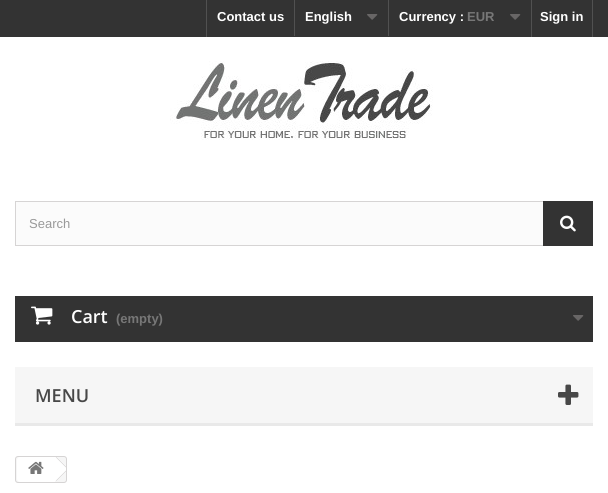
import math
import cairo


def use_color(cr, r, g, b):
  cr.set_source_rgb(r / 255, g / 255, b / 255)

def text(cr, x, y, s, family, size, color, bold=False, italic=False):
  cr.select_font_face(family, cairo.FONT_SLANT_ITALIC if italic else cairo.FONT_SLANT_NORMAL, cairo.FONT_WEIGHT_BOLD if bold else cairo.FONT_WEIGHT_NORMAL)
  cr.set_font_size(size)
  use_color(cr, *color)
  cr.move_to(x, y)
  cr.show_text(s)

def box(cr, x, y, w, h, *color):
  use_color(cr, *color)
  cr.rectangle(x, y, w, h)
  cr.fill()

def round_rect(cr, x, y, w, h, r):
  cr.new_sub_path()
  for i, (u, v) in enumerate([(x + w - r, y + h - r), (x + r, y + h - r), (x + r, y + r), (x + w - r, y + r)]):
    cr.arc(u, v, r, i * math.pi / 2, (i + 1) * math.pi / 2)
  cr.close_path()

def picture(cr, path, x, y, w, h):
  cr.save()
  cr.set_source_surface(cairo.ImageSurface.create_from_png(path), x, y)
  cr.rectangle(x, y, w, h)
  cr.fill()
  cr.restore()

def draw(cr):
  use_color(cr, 255, 255, 255)
  cr.paint()
  box(cr, 0, 0, 608, 37, 51, 51, 51)
  box(cr, 206, 0, 1, 37, 81, 81, 81)
  box(cr, 294, 0, 1, 36, 81, 81, 81)
  picture(cr, "img_01.png", 367, 14, 11, 6)
  box(cr, 388, 0, 1, 36, 81, 81, 81)
  picture(cr, "img_01.png", 510, 14, 11, 6)
  box(cr, 592, 0, 1, 37, 81, 81, 81)
  box(cr, 531, 0, 1, 37, 81, 81, 81)
  picture(cr, "img_02.png", 170, 61, 263, 79)
  box(cr, 16, 202, 527, 43, 251, 251, 251)
  cr.rectangle(15.5, 201.5, 577, 44)
  use_color(cr, 214, 212, 212)
  cr.set_line_width(1)
  cr.stroke()
  box(cr, 543, 201, 50, 45, 51, 51, 51)
  picture(cr, "img_03.png", 560, 215, 16, 17)
  box(cr, 15, 296, 578, 46, 51, 51, 51)
  picture(cr, "img_04.png", 31, 306, 22, 19)
  picture(cr, "img_01.png", 573, 315, 11, 6)
  box(cr, 15, 367, 578, 56, 246, 246, 246)
  box(cr, 15, 423, 578, 3, 233, 233, 233)
  picture(cr, "img_05.png", 558, 384, 21, 21)
  use_color(cr, 246, 246, 246)
  round_rect(cr, 15.5, 456.5, 51, 26, 2.5)
  cr.fill_preserve()
  use_color(cr, 214, 212, 212)
  cr.stroke()
  use_color(cr, 255, 255, 255)
  cr.new_path()
  cr.move_to(20, 457)
  cr.line_to(55, 457)
  cr.line_to(55, 482)
  cr.line_to(20, 482)
  cr.curve_to(18.5, 482, 17, 480.5, 17, 479)
  cr.line_to(17, 460)
  cr.curve_to(17, 458.5, 18.5, 457, 20, 457)
  cr.close_path()
  cr.fill()
  picture(cr, "img_06.png", 28, 461, 16, 13)
  cr.new_path()
  cr.move_to(57.5, 457.5)
  cr.line_to(66, 466)
  cr.line_to(66, 472)
  cr.line_to(57.5, 480.5)
  cr.curve_to(56.5, 481, 55.5, 481, 54.5, 480.5)
  cr.line_to(44.5, 470.5)
  cr.curve_to(44, 469.5, 44, 468.5, 44.5, 467.5)
  cr.line_to(54.5, 457.5)
  cr.curve_to(55.5, 457, 56.5, 457, 57.5, 457.5)
  cr.close_path()
  cr.fill()
  use_color(cr, 214, 212, 212)
  cr.new_path()
  cr.move_to(56.5, 457)
  cr.line_to(66, 466.5)
  cr.line_to(66, 467.5)
  cr.line_to(56, 457.5)
  cr.close_path()
  cr.move_to(66, 470.5)
  cr.line_to(66, 471.5)
  cr.line_to(56.5, 481)
  cr.line_to(56, 480.5)
  cr.close_path()
  cr.fill()
  text(cr, 217, 21, "Contact us", "Liberation Sans", 13, (255, 255, 255), bold=True)
  text(cr, 305, 21, "English", "Liberation Sans", 13, (255, 255, 255), bold=True)
  text(cr, 399, 21, "Currency :", "Liberation Sans", 13, (255, 255, 255), bold=True)
  text(cr, 467, 21, "EUR", "Liberation Sans", 13, (119, 119, 119), bold=True)
  text(cr, 540, 21, "Sign in", "Liberation Sans", 13, (255, 255, 255), bold=True)
  text(cr, 29, 228, "Search", "Liberation Sans", 13, (153, 153, 153))
  text(cr, 71, 323, "Cart", "Open Sans SemiBold", 18, (255, 255, 255))
  text(cr, 116, 323, "(empty)", "Liberation Sans", 13, (119, 119, 119), bold=True)
  text(cr, 35, 402, "MENU", "Open Sans SemiBold", 18, (72, 72, 72))


surface = cairo.ImageSurface(cairo.FORMAT_RGB24, 608, 493)
cr = cairo.Context(surface)
options = cairo.FontOptions()
options.set_hint_metrics(cairo.HINT_METRICS_OFF)
options.set_hint_style(cairo.HINT_STYLE_NONE)
cr.set_font_options(options)
cr.set_miter_limit(4)
draw(cr)
surface.write_to_png("out.png")
